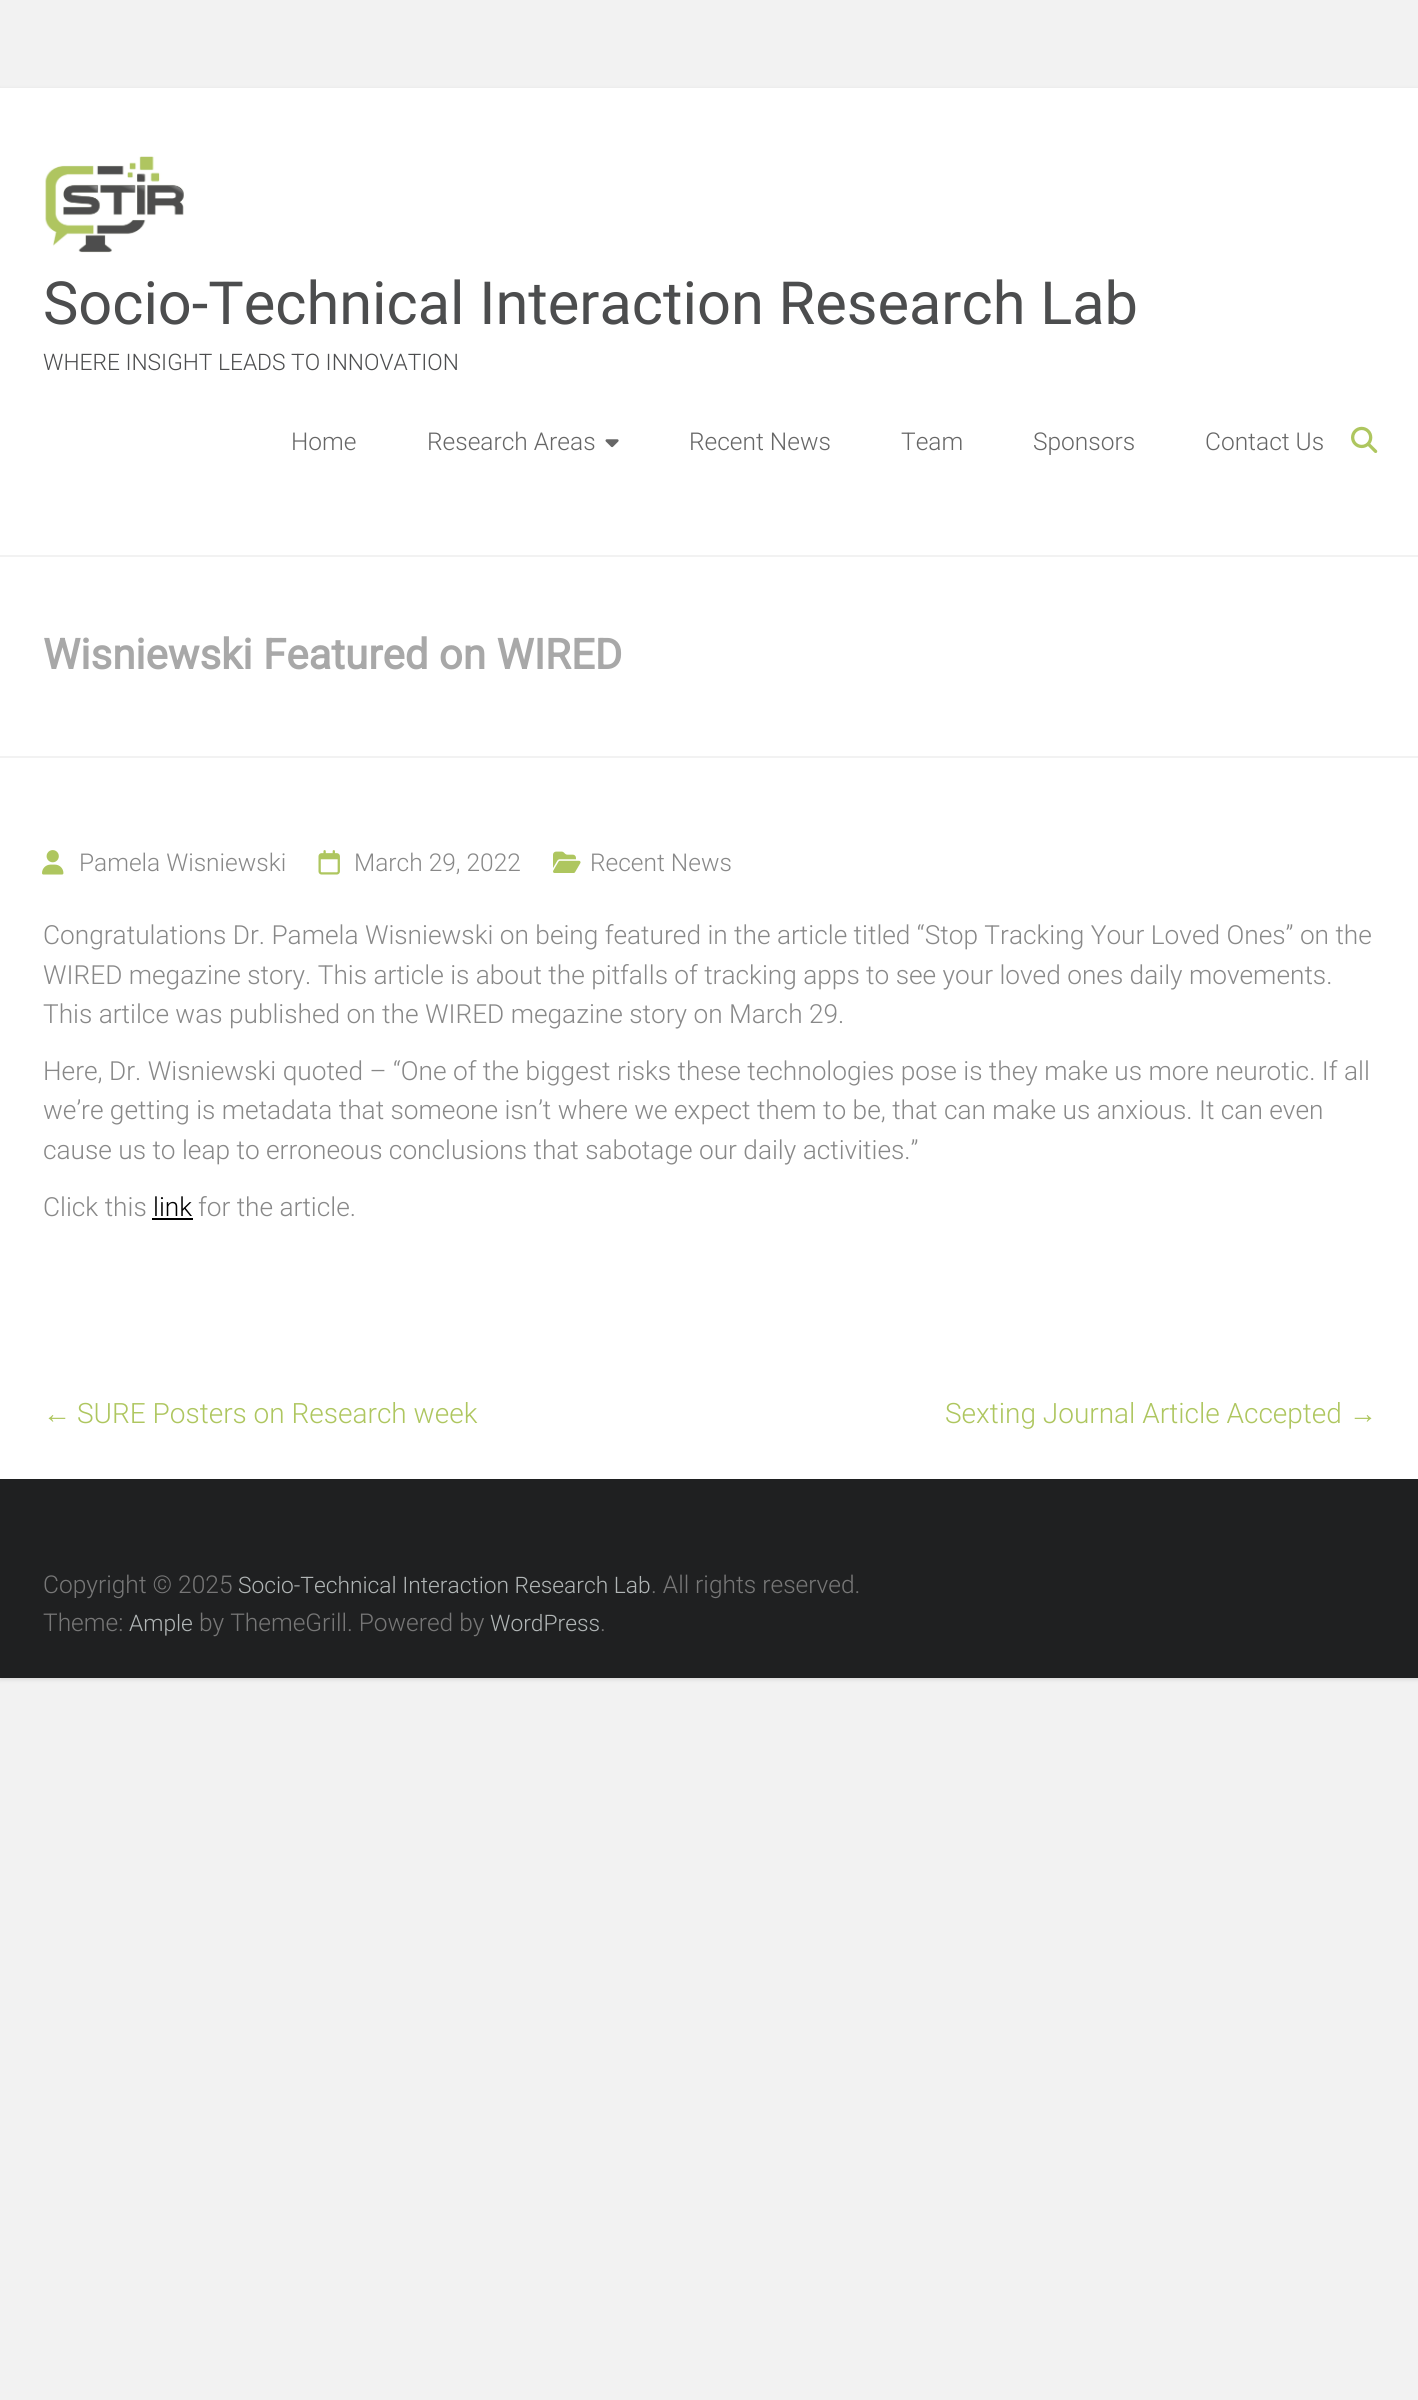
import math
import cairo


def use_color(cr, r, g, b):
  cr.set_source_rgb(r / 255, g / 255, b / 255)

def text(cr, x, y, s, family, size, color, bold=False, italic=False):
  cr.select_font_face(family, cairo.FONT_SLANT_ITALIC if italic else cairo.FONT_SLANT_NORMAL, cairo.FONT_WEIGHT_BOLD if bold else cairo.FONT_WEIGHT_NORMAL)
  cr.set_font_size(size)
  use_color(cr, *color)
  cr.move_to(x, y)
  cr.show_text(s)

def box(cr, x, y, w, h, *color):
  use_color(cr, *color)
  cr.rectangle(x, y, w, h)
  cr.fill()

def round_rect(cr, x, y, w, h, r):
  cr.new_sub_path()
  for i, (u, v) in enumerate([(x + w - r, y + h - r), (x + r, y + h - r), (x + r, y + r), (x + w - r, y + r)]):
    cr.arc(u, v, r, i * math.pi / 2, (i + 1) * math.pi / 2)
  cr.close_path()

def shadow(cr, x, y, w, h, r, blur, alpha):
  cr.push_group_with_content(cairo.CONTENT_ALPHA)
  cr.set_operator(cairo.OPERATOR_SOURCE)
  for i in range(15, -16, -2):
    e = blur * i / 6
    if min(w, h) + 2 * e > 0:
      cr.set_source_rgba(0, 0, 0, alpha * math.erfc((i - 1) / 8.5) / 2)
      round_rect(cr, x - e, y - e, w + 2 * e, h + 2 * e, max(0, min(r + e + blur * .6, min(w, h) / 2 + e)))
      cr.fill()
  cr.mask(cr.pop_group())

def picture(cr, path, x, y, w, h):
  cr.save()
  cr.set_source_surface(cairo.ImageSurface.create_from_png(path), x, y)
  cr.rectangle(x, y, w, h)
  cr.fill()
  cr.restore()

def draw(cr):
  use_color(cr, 242, 242, 242)
  cr.paint()
  use_color(cr, 0, 0, 0)
  shadow(cr, 0, 89, 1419, 1591, 0, 2, 0.1)
  box(cr, 0, 88, 1418, 1391, 255, 255, 255)
  box(cr, 0, 555, 1418, 2, 242, 242, 242)
  picture(cr, "img_01.png", 45, 156, 139, 97)
  picture(cr, "img_02.png", 605, 439, 14, 9)
  picture(cr, "img_03.png", 1351, 426, 27, 27)
  box(cr, 0, 756, 1418, 2, 242, 242, 242)
  picture(cr, "img_04.png", 42, 850, 22, 25)
  picture(cr, "img_05.png", 318, 850, 22, 25)
  picture(cr, "img_06.png", 553, 851, 28, 22)
  box(cr, 152, 1218, 41, 2, 0, 0, 0)
  box(cr, 0, 1479, 1418, 199, 31, 32, 33)
  text(cr, 43, 324, "Socio-Technical Interaction Research Lab", "Roboto", 59.5, (76, 77, 78))
  text(cr, 43, 370, "WHERE INSIGHT LEADS TO INNOVATION", "Roboto Light", 22.75, (76, 77, 78))
  text(cr, 291, 450, "Home", "Roboto Light", 24.5, (102, 102, 102))
  text(cr, 427, 450, "Research Areas", "Roboto Light", 24.5, (102, 102, 102))
  text(cr, 689, 450, "Recent News", "Roboto Light", 24.5, (102, 102, 102))
  text(cr, 901, 450, "Team", "Roboto Light", 24.5, (102, 102, 102))
  text(cr, 1033, 450, "Sponsors", "Roboto Light", 24.5, (102, 102, 102))
  text(cr, 1205, 450, "Contact Us", "Roboto Light", 24.5, (102, 102, 102))
  text(cr, 43, 669, "Wisniewski Featured on WIRED", "Roboto", 42, (168, 168, 168), bold=True)
  text(cr, 79, 871, "Pamela Wisniewski", "Roboto Light", 24.5, (136, 136, 136))
  text(cr, 354, 871, "March 29, 2022", "Roboto Light", 24.5, (136, 136, 136))
  text(cr, 590, 871, "Recent News", "Roboto Light", 24.5, (136, 136, 136))
  text(cr, 43, 944, "Congratulations Dr. Pamela Wisniewski on being featured in the article titled “Stop Tracking Your Loved Ones” on the", "Roboto Light", 26.25, (136, 136, 136))
  text(cr, 43, 984, "WIRED megazine story. This article is about the pitfalls of tracking apps to see your loved ones daily movements.", "Roboto Light", 26.25, (136, 136, 136))
  text(cr, 43, 1023, "This artilce was published on the WIRED megazine story on March 29.", "Roboto Light", 26.25, (136, 136, 136))
  text(cr, 43, 1080, "Here, Dr. Wisniewski quoted – “One of the biggest risks these technologies pose is they make us more neurotic. If all", "Roboto Light", 26.25, (136, 136, 136))
  text(cr, 43, 1119, "we’re getting is metadata that someone isn’t where we expect them to be, that can make us anxious. It can even", "Roboto Light", 26.25, (136, 136, 136))
  text(cr, 43, 1159, "cause us to leap to erroneous conclusions that sabotage our daily activities.”", "Roboto Light", 26.25, (136, 136, 136))
  text(cr, 43, 1216, "Click this", "Roboto Light", 26.25, (136, 136, 136))
  text(cr, 153, 1216, "link", "Roboto Light", 26.25, (0, 0, 0))
  text(cr, 198, 1216, "for the article.", "Roboto Light", 26.25, (136, 136, 136))
  text(cr, 43, 1423, "←", "Liberation Sans", 28, (174, 198, 95))
  text(cr, 77, 1423, "SURE Posters on Research week", "Roboto Light", 28, (174, 198, 95))
  text(cr, 945, 1423, "Sexting Journal Article Accepted", "Roboto Light", 28, (174, 198, 95))
  text(cr, 1349, 1423, "→", "Liberation Sans", 28, (174, 198, 95))
  text(cr, 43, 1593, "Copyright © 2025", "Roboto Light", 24.5, (119, 119, 119))
  text(cr, 238, 1593, "Socio-Technical Interaction Research Lab", "Roboto Light", 22.75, (177, 182, 182))
  text(cr, 651, 1593, ". All rights reserved.", "Roboto Light", 24.5, (119, 119, 119))
  text(cr, 43, 1631, "Theme:", "Roboto Light", 24.5, (119, 119, 119))
  text(cr, 129, 1631, "Ample", "Roboto Light", 22.75, (177, 182, 182))
  text(cr, 199, 1631, "by ThemeGrill. Powered by", "Roboto Light", 24.5, (119, 119, 119))
  text(cr, 490, 1631, "WordPress", "Roboto Light", 22.75, (177, 182, 182))
  text(cr, 600, 1631, ".", "Roboto Light", 24.5, (119, 119, 119))


surface = cairo.ImageSurface(cairo.FORMAT_RGB24, 1418, 2400)
cr = cairo.Context(surface)
options = cairo.FontOptions()
options.set_hint_metrics(cairo.HINT_METRICS_OFF)
options.set_hint_style(cairo.HINT_STYLE_NONE)
cr.set_font_options(options)
cr.set_miter_limit(4)
draw(cr)
surface.write_to_png("out.png")
